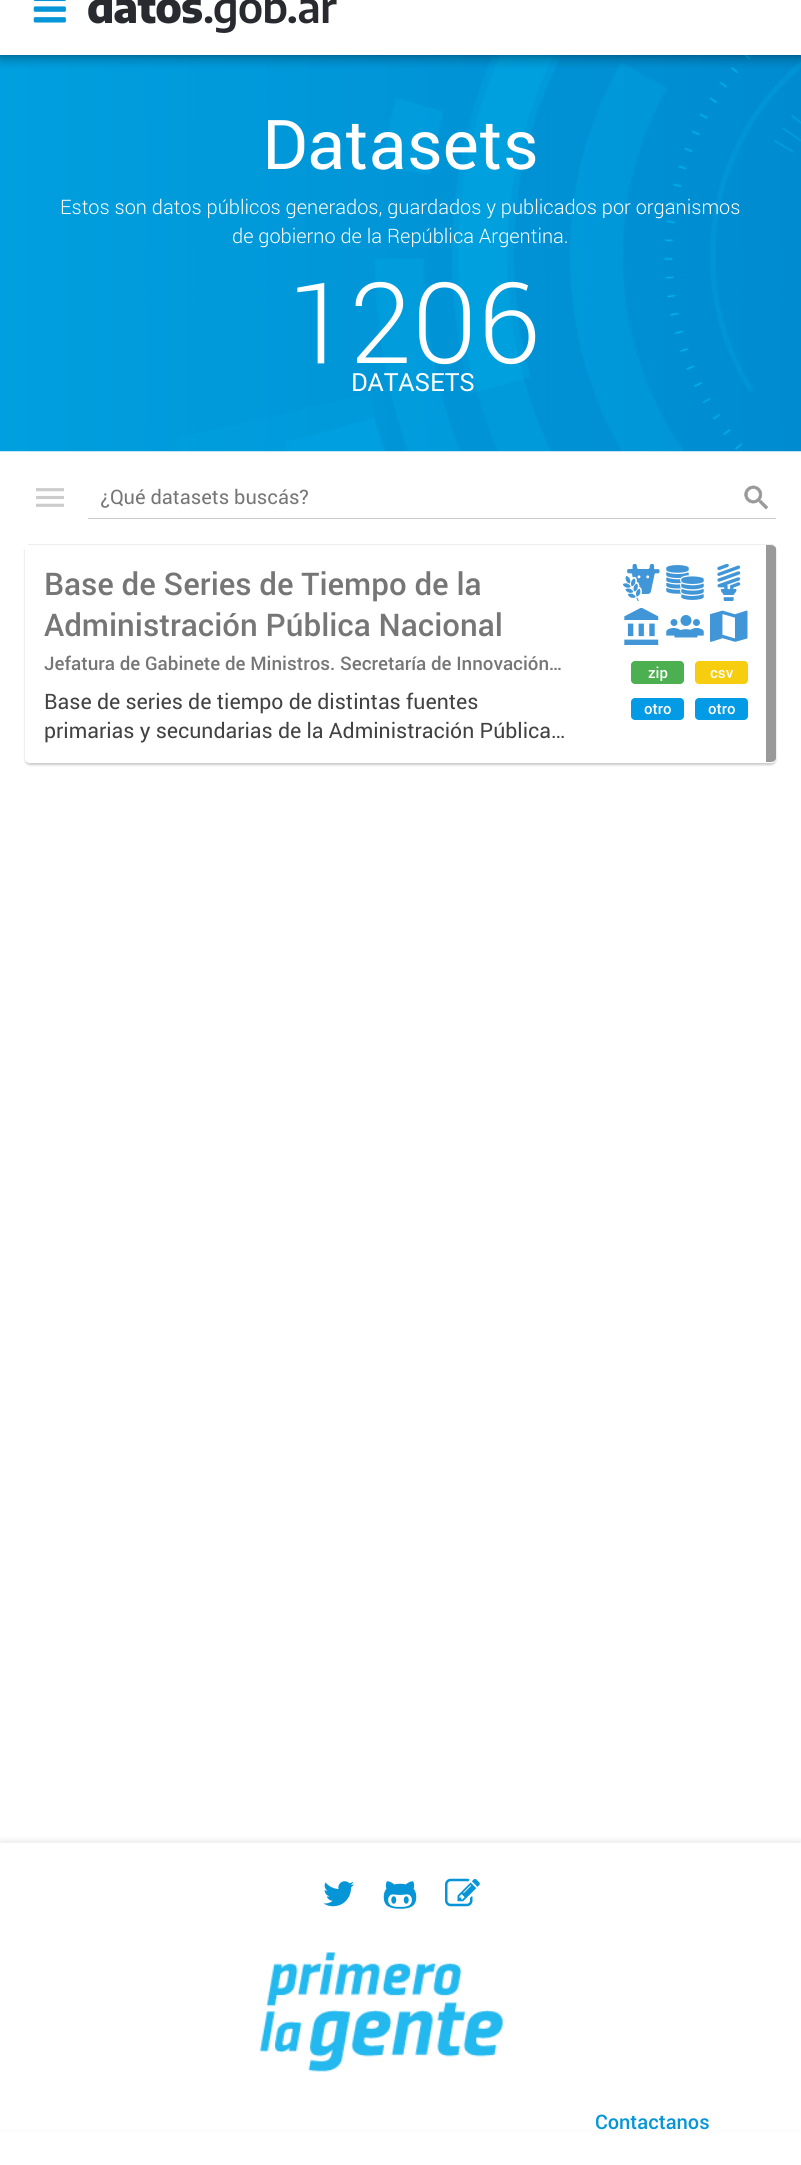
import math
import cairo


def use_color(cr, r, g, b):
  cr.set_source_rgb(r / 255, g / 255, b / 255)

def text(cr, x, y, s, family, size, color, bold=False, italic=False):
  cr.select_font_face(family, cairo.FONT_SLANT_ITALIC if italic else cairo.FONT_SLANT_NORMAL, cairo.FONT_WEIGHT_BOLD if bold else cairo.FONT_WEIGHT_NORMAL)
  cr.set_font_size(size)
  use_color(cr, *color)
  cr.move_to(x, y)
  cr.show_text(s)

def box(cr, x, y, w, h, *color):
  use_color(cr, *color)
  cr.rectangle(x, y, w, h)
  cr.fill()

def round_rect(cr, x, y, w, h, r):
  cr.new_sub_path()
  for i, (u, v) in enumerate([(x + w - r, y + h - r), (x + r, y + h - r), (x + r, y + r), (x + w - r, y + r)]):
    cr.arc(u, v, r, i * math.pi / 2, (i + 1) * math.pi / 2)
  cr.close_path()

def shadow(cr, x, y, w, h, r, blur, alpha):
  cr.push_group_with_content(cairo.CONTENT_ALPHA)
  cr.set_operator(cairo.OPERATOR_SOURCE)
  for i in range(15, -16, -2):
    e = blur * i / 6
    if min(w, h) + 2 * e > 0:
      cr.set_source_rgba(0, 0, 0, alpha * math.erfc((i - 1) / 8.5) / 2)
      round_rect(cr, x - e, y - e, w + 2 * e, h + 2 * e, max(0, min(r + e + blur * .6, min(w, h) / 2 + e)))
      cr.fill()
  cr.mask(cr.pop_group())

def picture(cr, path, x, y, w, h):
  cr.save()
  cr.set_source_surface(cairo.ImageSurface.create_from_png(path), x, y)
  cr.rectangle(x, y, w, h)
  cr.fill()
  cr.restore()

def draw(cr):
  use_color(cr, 255, 255, 255)
  cr.paint()
  picture(cr, "img_03.png", 0, 55, 801, 397)
  cr.save()
  cr.rectangle(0, 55, 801, 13)
  cr.clip()
  use_color(cr, 0, 0, 0)
  shadow(cr, 0, -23, 801, 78, 0, 7.5, 0.5)
  cr.restore()
  picture(cr, "img_01.png", 33, 0, 33, 23)
  picture(cr, "img_02.png", 88, 0, 249, 33)
  picture(cr, "img_04.png", 36, 488, 28, 19)
  box(cr, 88, 518, 688, 1, 204, 204, 204)
  picture(cr, "img_05.png", 744, 485, 25, 25)
  cr.save()
  cr.set_fill_rule(cairo.FILL_RULE_EVEN_ODD)
  cr.new_path()
  cr.move_to(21, 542)
  cr.line_to(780, 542)
  cr.line_to(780, 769)
  cr.line_to(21, 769)
  cr.close_path()
  cr.move_to(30, 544)
  cr.line_to(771, 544)
  cr.curve_to(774, 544, 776, 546, 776, 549)
  cr.line_to(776, 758)
  cr.curve_to(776, 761, 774, 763, 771, 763)
  cr.line_to(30, 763)
  cr.curve_to(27, 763, 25, 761, 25, 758)
  cr.line_to(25, 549)
  cr.curve_to(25, 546, 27, 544, 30, 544)
  cr.close_path()
  cr.clip()
  use_color(cr, 0, 0, 0)
  shadow(cr, 25, 546, 751, 219, 5, 1, 0.2)
  cr.restore()
  box(cr, 28, 544, 746, 1, 238, 238, 238)
  use_color(cr, 153, 153, 153)
  cr.new_path()
  cr.move_to(766, 545)
  cr.line_to(771, 545)
  cr.curve_to(773, 545, 775, 546, 776, 548)
  cr.line_to(776, 759)
  cr.curve_to(775, 761, 773, 762, 771, 762)
  cr.line_to(766, 762)
  cr.close_path()
  cr.fill()
  picture(cr, "img_06.png", 623, 564, 37, 37)
  picture(cr, "img_07.png", 666, 565, 38, 35)
  picture(cr, "img_08.png", 717, 564, 24, 37)
  picture(cr, "img_09.png", 624, 608, 35, 37)
  picture(cr, "img_10.png", 666, 615, 38, 23)
  picture(cr, "img_11.png", 710, 610, 38, 32)
  use_color(cr, 76, 175, 80)
  round_rect(cr, 631, 661, 53, 23, 4)
  cr.fill()
  use_color(cr, 247, 205, 15)
  round_rect(cr, 695, 661, 53, 23, 4)
  cr.fill()
  use_color(cr, 3, 155, 229)
  round_rect(cr, 631, 698, 53, 22, 4)
  cr.fill()
  round_rect(cr, 695, 698, 53, 22, 4)
  cr.fill()
  cr.save()
  cr.set_fill_rule(cairo.FILL_RULE_EVEN_ODD)
  cr.new_path()
  cr.move_to(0, 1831)
  cr.line_to(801, 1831)
  cr.line_to(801, 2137)
  cr.line_to(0, 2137)
  cr.close_path()
  cr.move_to(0, 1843)
  cr.line_to(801, 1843)
  cr.line_to(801, 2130)
  cr.line_to(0, 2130)
  cr.close_path()
  cr.clip()
  use_color(cr, 220, 220, 220)
  shadow(cr, 0, 1840, 801, 288, 0, 2.5, 0.5)
  cr.restore()
  picture(cr, "img_12.png", 323, 1881, 31, 26)
  picture(cr, "img_13.png", 383, 1881, 34, 28)
  picture(cr, "img_14.png", 445, 1878, 35, 29)
  picture(cr, "img_15.png", 259, 1952, 244, 120)
  text(cr, 262, 169, "Datasets", "Roboto", 68.75, (255, 255, 255))
  text(cr, 60, 214, "Estos son datos públicos generados, guardados y publicados por organismos", "Roboto Light", 20, (255, 255, 255))
  text(cr, 232, 243, "de gobierno de la República Argentina.", "Roboto Light", 20, (255, 255, 255))
  text(cr, 287, 363, "1206", "Roboto Light", 112.5, (255, 255, 255))
  text(cr, 351, 391, "DATASETS", "Roboto", 25, (255, 255, 255))
  text(cr, 100, 504, "¿Qué datasets buscás?", "Roboto", 20, (118, 118, 118))
  text(cr, 44, 595, "Base de Series de Tiempo de la", "Roboto Medium", 31.25, (118, 118, 118))
  text(cr, 44, 636, "Administración Pública Nacional", "Roboto Medium", 31.25, (118, 118, 118))
  text(cr, 44, 670, "Jefatura de Gabinete de Ministros. Secretaría de Innovación…", "Roboto Medium", 18.75, (118, 118, 118))
  text(cr, 44, 709, "Base de series de tiempo de distintas fuentes", "Roboto", 21.25, (66, 66, 66))
  text(cr, 44, 738, "primarias y secundarias de la Administración Pública…", "Roboto", 21.25, (66, 66, 66))
  text(cr, 648, 678, "zip", "Roboto Medium", 15, (255, 255, 255))
  text(cr, 710, 678, "csv", "Roboto Medium", 15, (255, 255, 255))
  text(cr, 644, 714, "otro", "Roboto Medium", 15, (255, 255, 255))
  text(cr, 708, 714, "otro", "Roboto Medium", 15, (255, 255, 255))
  text(cr, 595, 2129, "Contactanos", "Roboto Medium", 20, (6, 149, 214))


surface = cairo.ImageSurface(cairo.FORMAT_RGB24, 801, 2165)
cr = cairo.Context(surface)
options = cairo.FontOptions()
options.set_hint_metrics(cairo.HINT_METRICS_OFF)
options.set_hint_style(cairo.HINT_STYLE_NONE)
cr.set_font_options(options)
cr.set_miter_limit(4)
draw(cr)
surface.write_to_png("out.png")
